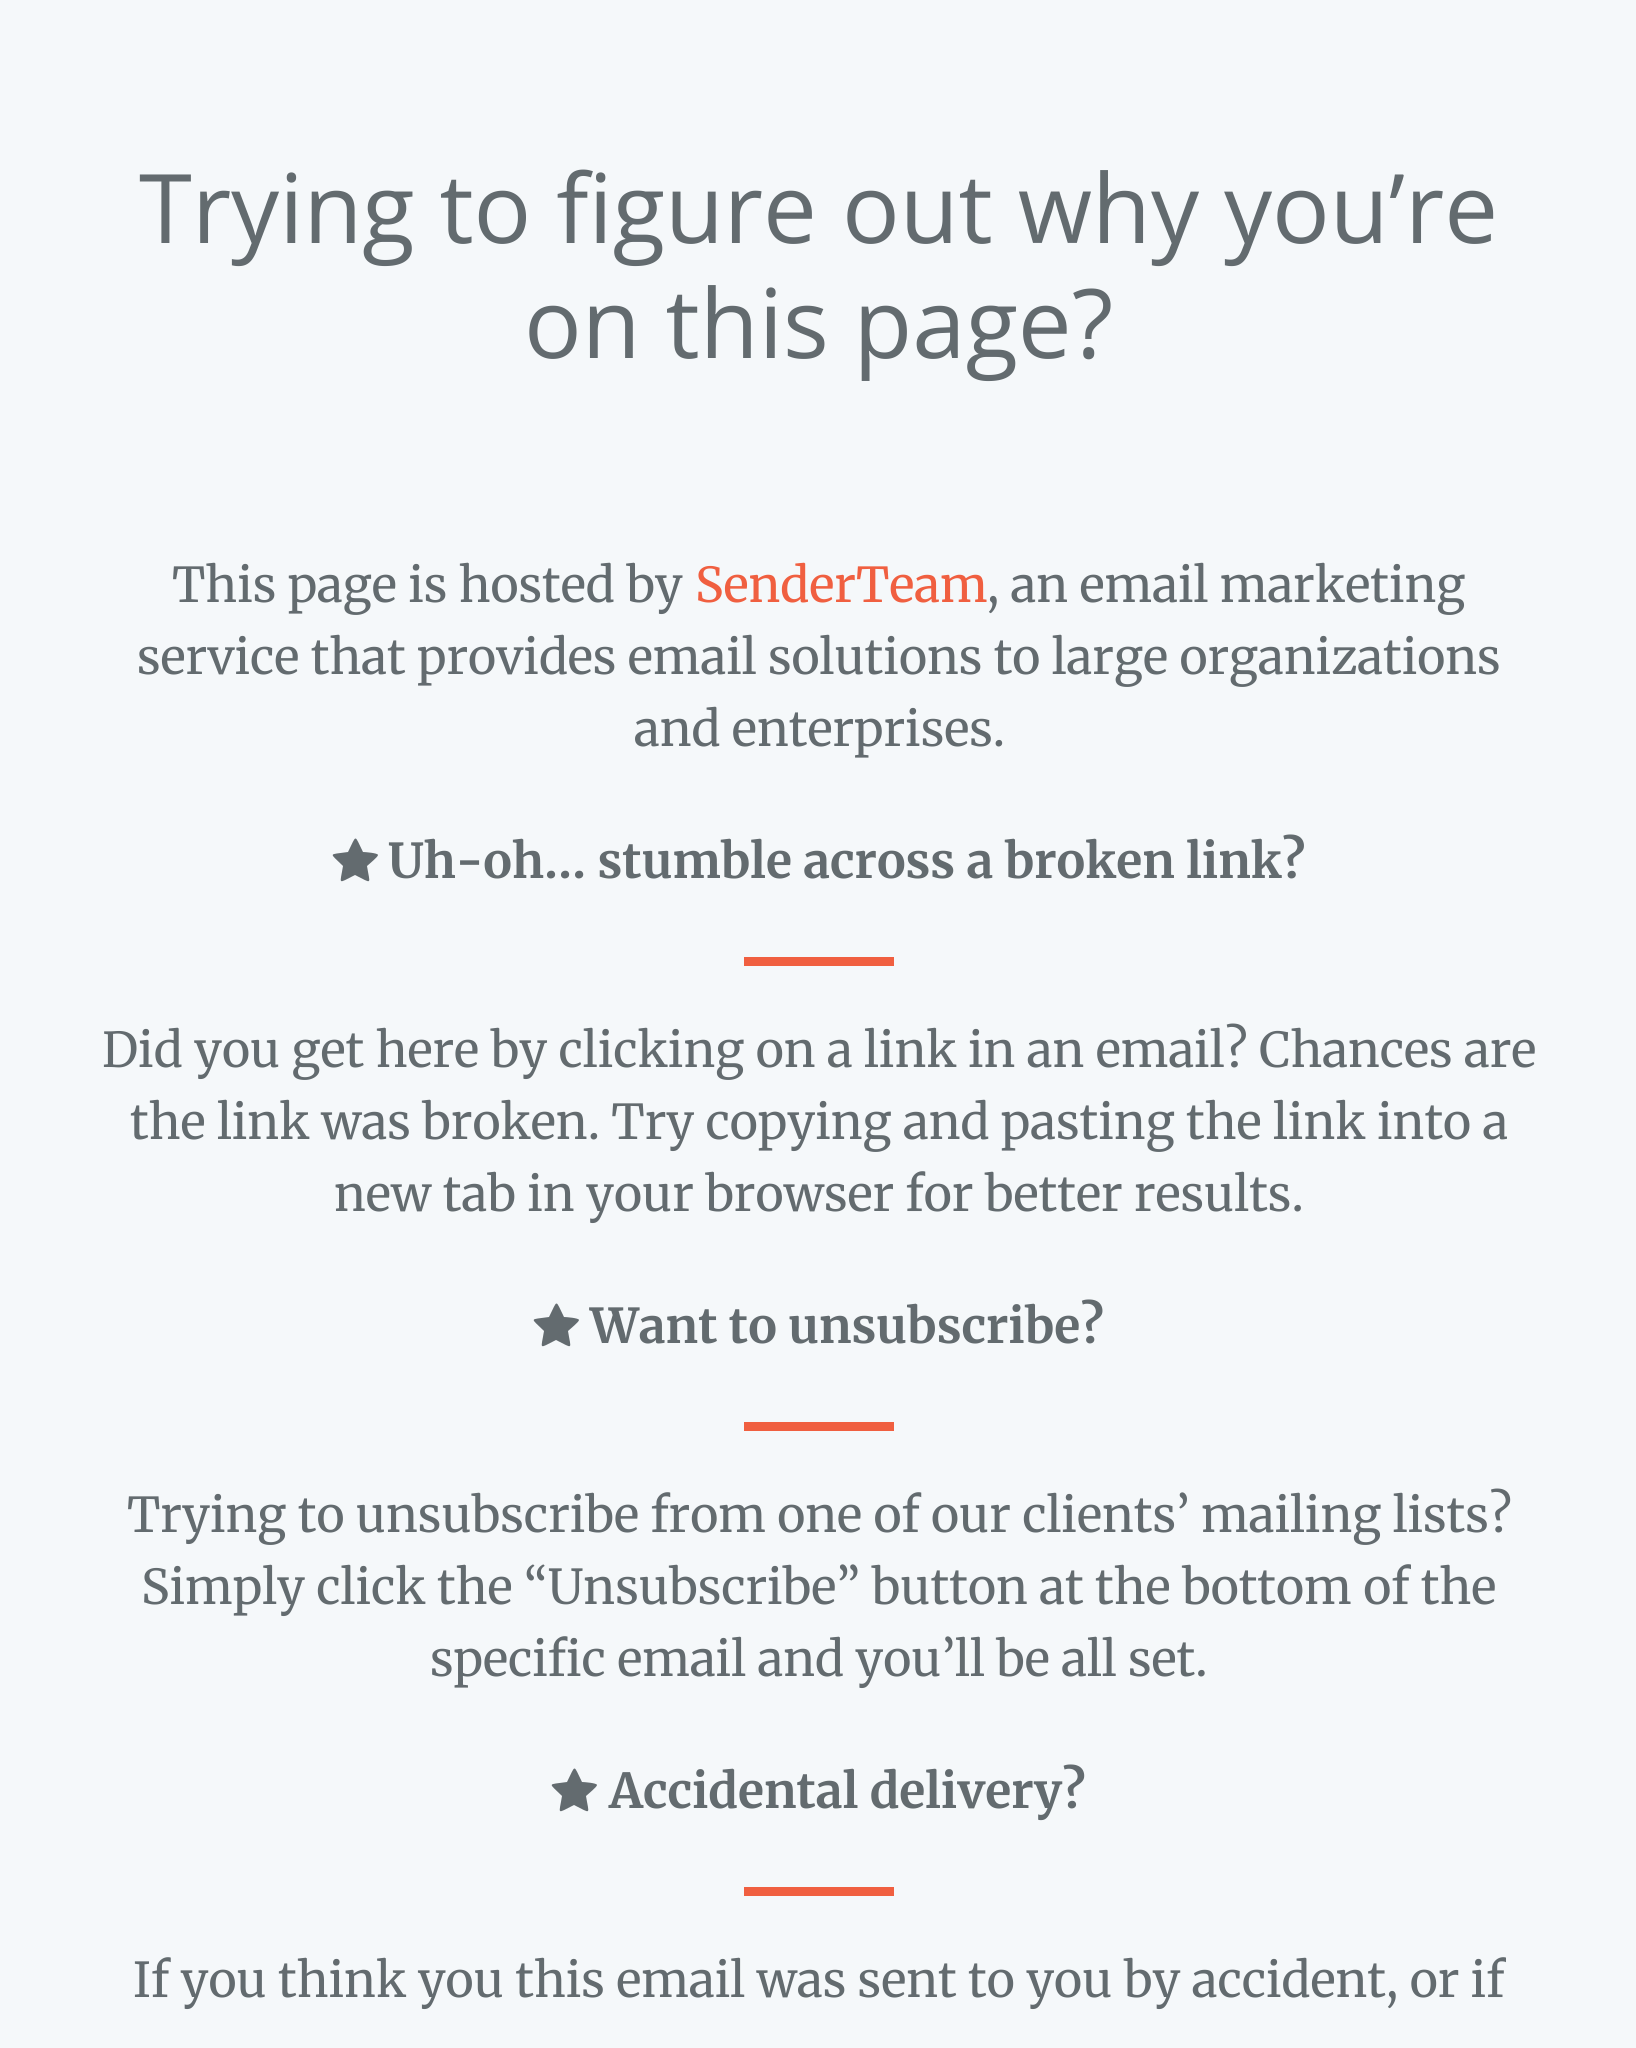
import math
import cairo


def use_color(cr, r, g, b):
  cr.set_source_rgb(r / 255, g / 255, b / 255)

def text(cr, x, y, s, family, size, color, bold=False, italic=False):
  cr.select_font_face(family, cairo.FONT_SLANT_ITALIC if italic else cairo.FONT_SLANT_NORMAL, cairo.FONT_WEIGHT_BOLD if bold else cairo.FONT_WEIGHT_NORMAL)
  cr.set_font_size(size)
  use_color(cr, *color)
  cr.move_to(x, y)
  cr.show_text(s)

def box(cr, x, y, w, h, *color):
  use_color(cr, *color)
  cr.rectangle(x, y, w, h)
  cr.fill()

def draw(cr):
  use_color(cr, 245, 248, 250)
  cr.paint()
  use_color(cr, 99, 107, 111)
  cr.new_path()
  cr.move_to(378, 855)
  cr.curve_to(378, 857, 369, 864, 367, 866)
  cr.curve_to(370, 885, 373, 884, 355, 875)
  cr.curve_to(337, 884, 340, 885, 343, 866)
  cr.curve_to(329, 852, 328, 855, 348, 852)
  cr.curve_to(357, 834, 354, 834, 363, 852)
  cr.curve_to(365, 852, 378, 853, 378, 855)
  cr.close_path()
  cr.fill()
  box(cr, 744, 957, 150, 9, 240, 95, 64)
  use_color(cr, 99, 107, 111)
  cr.new_path()
  cr.move_to(579, 1320)
  cr.curve_to(579, 1322, 570, 1329, 568, 1331)
  cr.curve_to(571, 1350, 574, 1349, 556, 1340)
  cr.curve_to(538, 1349, 541, 1350, 544, 1331)
  cr.curve_to(530, 1317, 529, 1320, 549, 1317)
  cr.curve_to(558, 1299, 555, 1299, 564, 1317)
  cr.curve_to(566, 1317, 579, 1318, 579, 1320)
  cr.close_path()
  cr.fill()
  box(cr, 744, 1422, 150, 9, 240, 95, 64)
  use_color(cr, 99, 107, 111)
  cr.new_path()
  cr.move_to(597, 1785)
  cr.curve_to(597, 1787, 588, 1794, 586, 1796)
  cr.curve_to(589, 1815, 592, 1814, 574, 1805)
  cr.curve_to(556, 1814, 559, 1815, 562, 1796)
  cr.curve_to(548, 1782, 547, 1785, 567, 1782)
  cr.curve_to(576, 1764, 573, 1764, 582, 1782)
  cr.curve_to(584, 1782, 597, 1783, 597, 1785)
  cr.close_path()
  cr.fill()
  box(cr, 744, 1887, 150, 9, 240, 95, 64)
  text(cr, 139, 243, "Trying to figure out why you’re", "Open Sans", 96, (99, 107, 111))
  text(cr, 524, 358, "on this page?", "Open Sans", 96, (99, 107, 111))
  text(cr, 172, 602, "This page is hosted by", "Merriweather", 48, (99, 107, 111))
  text(cr, 695, 602, "SenderTeam", "Merriweather", 48, (240, 95, 64))
  text(cr, 987, 602, ", an email marketing", "Merriweather", 48, (99, 107, 111))
  text(cr, 137, 674, "service that provides email solutions to large organizations", "Merriweather", 48, (99, 107, 111))
  text(cr, 634, 746, "and enterprises.", "Merriweather", 48, (99, 107, 111))
  text(cr, 388, 878, "Uh-oh… stumble across a broken link?", "Merriweather", 48, (99, 107, 111), bold=True)
  text(cr, 102, 1067, "Did you get here by clicking on a link in an email? Chances are", "Merriweather", 48, (99, 107, 111))
  text(cr, 130, 1139, "the link was broken. Try copying and pasting the link into a", "Merriweather", 48, (99, 107, 111))
  text(cr, 334, 1211, "new tab in your browser for better results.", "Merriweather", 48, (99, 107, 111))
  text(cr, 590, 1343, "Want to unsubscribe?", "Merriweather", 48, (99, 107, 111), bold=True)
  text(cr, 127, 1532, "Trying to unsubscribe from one of our clients’ mailing lists?", "Merriweather", 48, (99, 107, 111))
  text(cr, 141, 1604, "Simply click the “Unsubscribe” button at the bottom of the", "Merriweather", 48, (99, 107, 111))
  text(cr, 430, 1676, "specific email and you’ll be all set.", "Merriweather", 48, (99, 107, 111))
  text(cr, 609, 1808, "Accidental delivery?", "Merriweather", 48, (99, 107, 111), bold=True)
  text(cr, 133, 1997, "If you think you this email was sent to you by accident, or if", "Merriweather", 48, (99, 107, 111))


surface = cairo.ImageSurface(cairo.FORMAT_RGB24, 1636, 2048)
cr = cairo.Context(surface)
options = cairo.FontOptions()
options.set_hint_metrics(cairo.HINT_METRICS_OFF)
options.set_hint_style(cairo.HINT_STYLE_NONE)
cr.set_font_options(options)
cr.set_miter_limit(4)
draw(cr)
surface.write_to_png("out.png")
